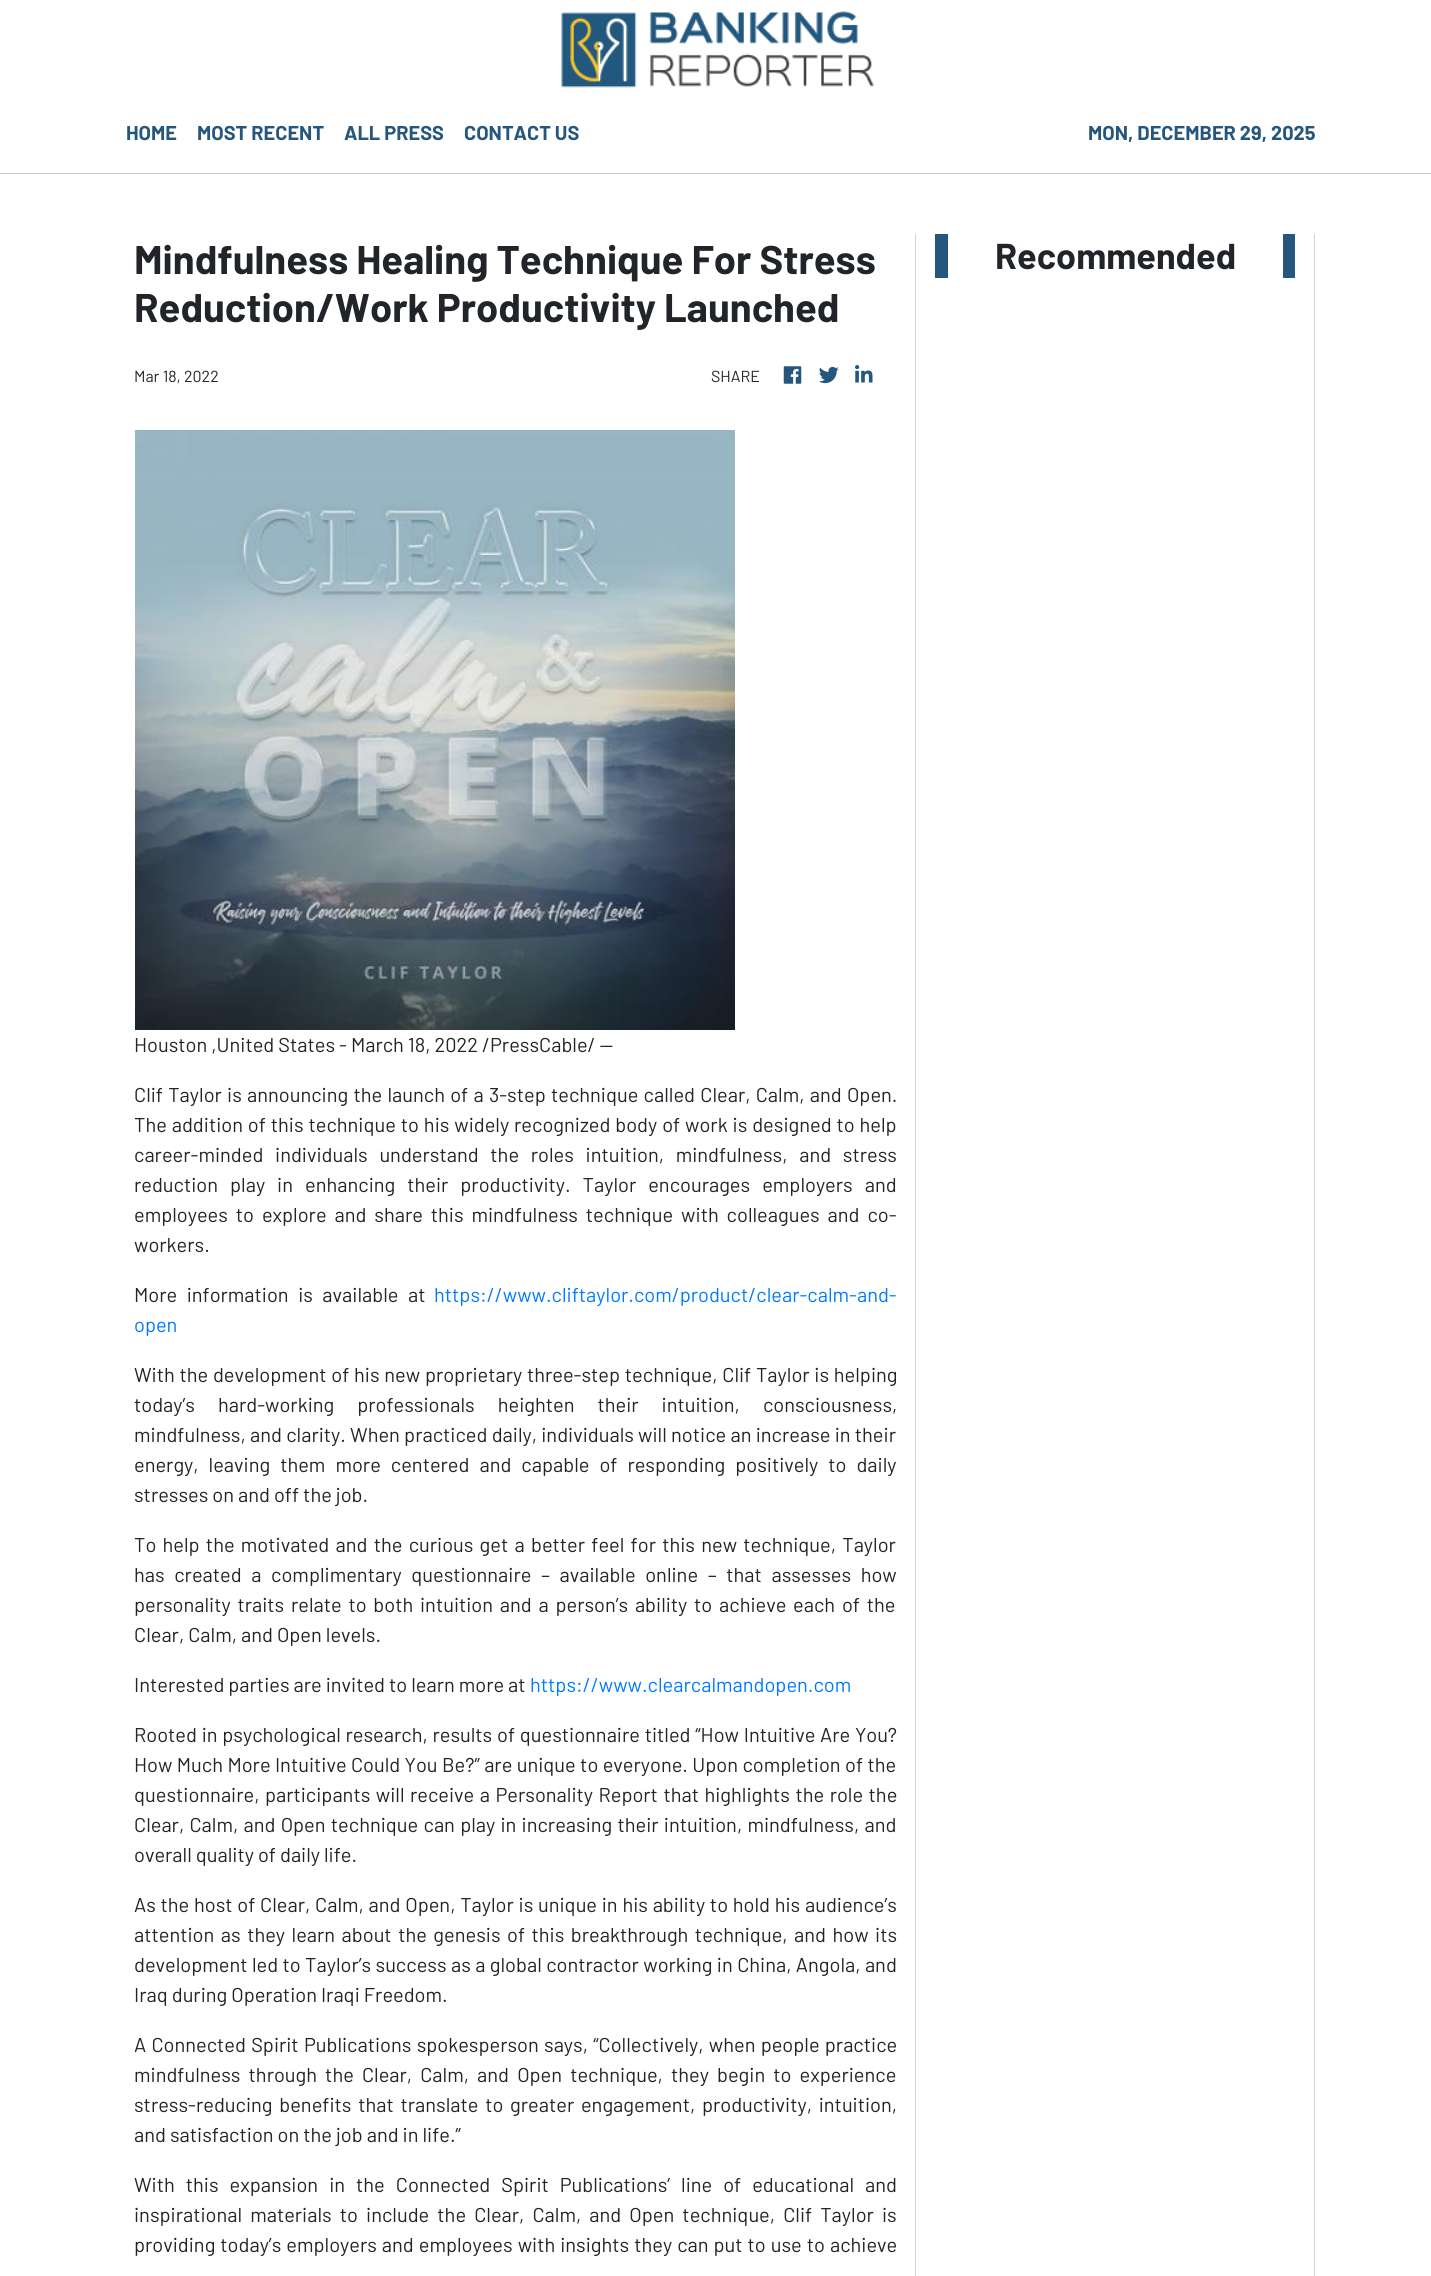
import math
import cairo


def use_color(cr, r, g, b):
  cr.set_source_rgb(r / 255, g / 255, b / 255)

def text(cr, x, y, s, family, size, color, bold=False, italic=False):
  cr.select_font_face(family, cairo.FONT_SLANT_ITALIC if italic else cairo.FONT_SLANT_NORMAL, cairo.FONT_WEIGHT_BOLD if bold else cairo.FONT_WEIGHT_NORMAL)
  cr.set_font_size(size)
  use_color(cr, *color)
  cr.move_to(x, y)
  cr.show_text(s)

def spaced_text(cr, x, y, s, letter, word):
  cr.move_to(x, y)
  for ch in s:
    cr.show_text(ch)
    cr.rel_move_to(letter + word * (ch == ' '), 0)

def box(cr, x, y, w, h, *color):
  use_color(cr, *color)
  cr.rectangle(x, y, w, h)
  cr.fill()

def picture(cr, path, x, y, w, h):
  cr.save()
  cr.set_source_surface(cairo.ImageSurface.create_from_png(path), x, y)
  cr.rectangle(x, y, w, h)
  cr.fill()
  cr.restore()

def draw(cr):
  use_color(cr, 255, 255, 255)
  cr.paint()
  picture(cr, "img_01.png", 561, 11, 313, 77)
  box(cr, 0, 173, 1431, 1, 202, 202, 202)
  picture(cr, "img_02.png", 783, 366, 19, 18)
  picture(cr, "img_03.png", 818, 366, 21, 18)
  picture(cr, "img_04.png", 855, 365, 18, 18)
  picture(cr, "img_05.png", 135, 430, 600, 600)
  box(cr, 1314, 234, 1, 2042, 210, 210, 210)
  box(cr, 915, 234, 1, 2042, 210, 210, 210)
  box(cr, 1283, 234, 12, 44, 36, 86, 126)
  box(cr, 935, 234, 13, 44, 36, 86, 126)
  text(cr, 126, 140, "HOME", "Barlow", 20, (36, 86, 126), bold=True)
  text(cr, 197, 140, "MOST RECENT", "Barlow", 20, (36, 86, 126), bold=True)
  text(cr, 344, 140, "ALL PRESS", "Barlow", 20, (36, 86, 126), bold=True)
  text(cr, 464, 140, "CONTACT US", "Barlow", 20, (36, 86, 126), bold=True)
  text(cr, 1088, 140, "MON, DECEMBER 29, 2025", "Barlow", 20, (36, 86, 126), bold=True)
  text(cr, 134, 274, "Mindfulness Healing Technique For Stress", "Barlow", 40, (33, 37, 41), bold=True)
  text(cr, 134, 322, "Reduction/Work Productivity Launched", "Barlow", 40, (33, 37, 41), bold=True)
  text(cr, 134, 382, "Mar 18, 2022", "Barlow", 16, (33, 37, 41))
  text(cr, 711, 382, "SHARE", "Barlow", 16, (33, 37, 41))
  text(cr, 134, 1052, "Houston ,United States - March 18, 2022 /PressCable/ —", "Barlow", 20, (33, 37, 41))
  spaced_text(cr, 134, 1102, "Clif Taylor is announcing the launch of a 3-step technique called Clear, Calm, and Open.", 0, 1.25)
  spaced_text(cr, 134, 1132, "The addition of this technique to his widely recognized body of work is designed to help", 0, 0.9)
  spaced_text(cr, 134, 1162, "career-minded individuals understand the roles intuition, mindfulness, and stress", 0, 7.75)
  spaced_text(cr, 134, 1192, "reduction play in enhancing their productivity. Taylor encourages employers and", 0, 8)
  spaced_text(cr, 134, 1222, "employees to explore and share this mindfulness technique with colleagues and co-", 0, 3.9)
  text(cr, 134, 1252, "workers.", "Barlow", 20, (33, 37, 41))
  spaced_text(cr, 134, 1302, "More information is available at", 0, 5.5)
  text(cr, 434, 1302, "https://www.cliftaylor.com/product/clear-calm-and-", "Barlow", 20, (0, 123, 255))
  text(cr, 134, 1332, "open", "Barlow", 20, (0, 123, 255))
  use_color(cr, 33, 37, 41)
  spaced_text(cr, 134, 1382, "With the development of his new proprietary three-step technique, Clif Taylor is helping", 0, 0.75)
  spaced_text(cr, 134, 1412, "today’s hard-working professionals heighten their intuition, consciousness,", 0, 19)
  spaced_text(cr, 134, 1442, "mindfulness, and clarity. When practiced daily, individuals will notice an increase in their", 0, 0.25)
  spaced_text(cr, 134, 1472, "energy, leaving them more centered and capable of responding positively to daily", 0, 6)
  text(cr, 134, 1502, "stresses on and off the job.", "Barlow", 20, (33, 37, 41))
  spaced_text(cr, 134, 1552, "To help the motivated and the curious get a better feel for this new technique, Taylor", 0, 2.25)
  spaced_text(cr, 134, 1582, "has created a complimentary questionnaire – available online – that assesses how", 0, 5.6)
  spaced_text(cr, 134, 1612, "personality traits relate to both intuition and a person’s ability to achieve each of the", 0, 2.75)
  text(cr, 134, 1642, "Clear, Calm, and Open levels.", "Barlow", 20, (33, 37, 41))
  text(cr, 134, 1692, "Interested parties are invited to learn more at", "Barlow", 20, (33, 37, 41))
  text(cr, 530, 1692, "https://www.clearcalmandopen.com", "Barlow", 20, (0, 123, 255))
  use_color(cr, 33, 37, 41)
  spaced_text(cr, 134, 1742, "Rooted in psychological research, results of questionnaire titled “How Intuitive Are You?", 0, 0.75)
  spaced_text(cr, 134, 1772, "How Much More Intuitive Could You Be?” are unique to everyone. Upon completion of the", 0, 0.4)
  spaced_text(cr, 134, 1802, "questionnaire, participants will receive a Personality Report that highlights the role the", 0, 1.5)
  spaced_text(cr, 134, 1832, "Clear, Calm, and Open technique can play in increasing their intuition, mindfulness, and", 0, 1.25)
  text(cr, 134, 1862, "overall quality of daily life.", "Barlow", 20, (33, 37, 41))
  spaced_text(cr, 134, 1912, "As the host of Clear, Calm, and Open, Taylor is unique in his ability to hold his audience’s", 0, 0.75)
  spaced_text(cr, 134, 1942, "attention as they learn about the genesis of this breakthrough technique, and how its", 0, 2.5)
  spaced_text(cr, 134, 1972, "development led to Taylor’s success as a global contractor working in China, Angola, and", 0, 0.4)
  text(cr, 134, 2002, "Iraq during Operation Iraqi Freedom.", "Barlow", 20, (33, 37, 41))
  spaced_text(cr, 134, 2052, "A Connected Spirit Publications spokesperson says, “Collectively, when people practice", 0, 1.25)
  spaced_text(cr, 134, 2082, "mindfulness through the Clear, Calm, and Open technique, they begin to experience", 0, 4.1)
  spaced_text(cr, 134, 2112, "stress-reducing benefits that translate to greater engagement, productivity, intuition,", 0, 2.75)
  text(cr, 134, 2142, "and satisfaction on the job and in life.”", "Barlow", 20, (33, 37, 41))
  spaced_text(cr, 134, 2192, "With this expansion in the Connected Spirit Publications’ line of educational and", 0, 7)
  spaced_text(cr, 134, 2222, "inspirational materials to include the Clear, Calm, and Open technique, Clif Taylor is", 0, 4.1)
  spaced_text(cr, 134, 2252, "providing today’s employers and employees with insights they can put to use to achieve", 0, 1)
  text(cr, 995, 269, "Recommended", "Barlow", 36, (33, 37, 41), bold=True)


surface = cairo.ImageSurface(cairo.FORMAT_RGB24, 1431, 2276)
cr = cairo.Context(surface)
options = cairo.FontOptions()
options.set_hint_metrics(cairo.HINT_METRICS_OFF)
options.set_hint_style(cairo.HINT_STYLE_NONE)
cr.set_font_options(options)
cr.set_miter_limit(4)
draw(cr)
surface.write_to_png("out.png")
